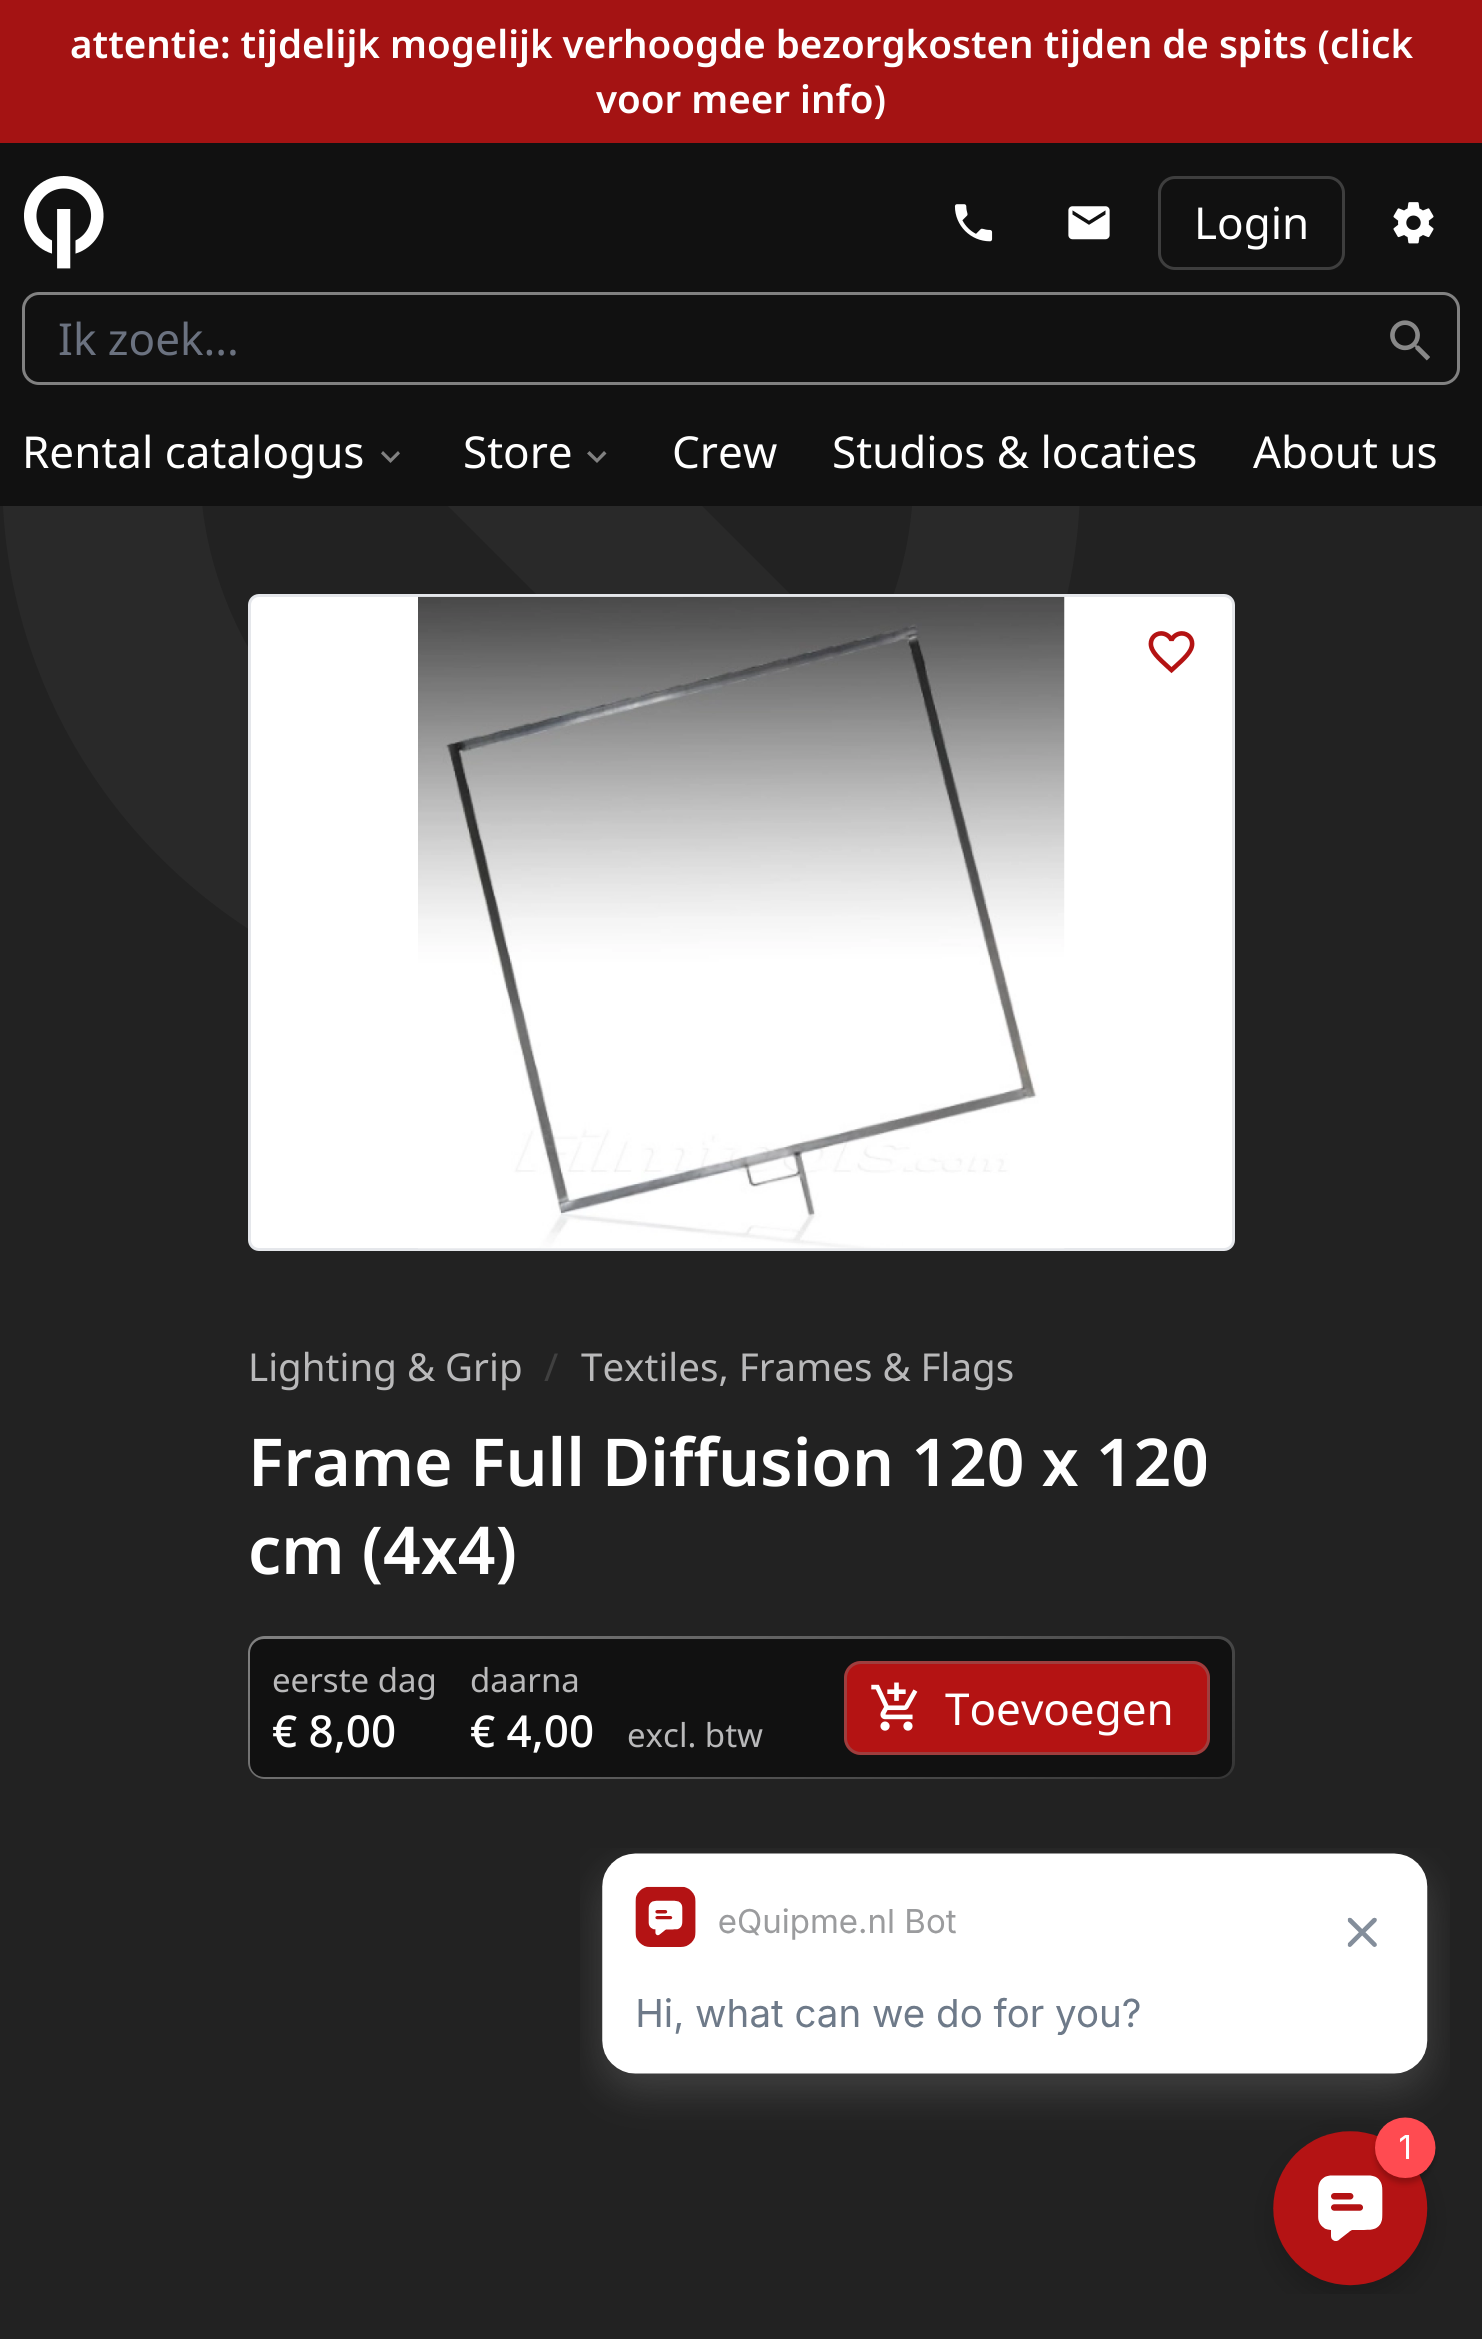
import math
import cairo


def use_color(cr, r, g, b):
  cr.set_source_rgb(r / 255, g / 255, b / 255)

def text(cr, x, y, s, family, size, color, bold=False, italic=False):
  cr.select_font_face(family, cairo.FONT_SLANT_ITALIC if italic else cairo.FONT_SLANT_NORMAL, cairo.FONT_WEIGHT_BOLD if bold else cairo.FONT_WEIGHT_NORMAL)
  cr.set_font_size(size)
  use_color(cr, *color)
  cr.move_to(x, y)
  cr.show_text(s)

def box(cr, x, y, w, h, *color):
  use_color(cr, *color)
  cr.rectangle(x, y, w, h)
  cr.fill()

def round_rect(cr, x, y, w, h, r):
  cr.new_sub_path()
  for i, (u, v) in enumerate([(x + w - r, y + h - r), (x + r, y + h - r), (x + r, y + r), (x + w - r, y + r)]):
    cr.arc(u, v, r, i * math.pi / 2, (i + 1) * math.pi / 2)
  cr.close_path()

def picture(cr, path, x, y, w, h):
  cr.save()
  cr.set_source_surface(cairo.ImageSurface.create_from_png(path), x, y)
  cr.rectangle(x, y, w, h)
  cr.fill()
  cr.restore()

def draw(cr):
  use_color(cr, 34, 34, 34)
  cr.paint()
  use_color(cr, 41, 41, 41)
  cr.set_fill_rule(cairo.FILL_RULE_EVEN_ODD)
  cr.new_path()
  cr.move_to(4, 434)
  cr.curve_to(14, 305, 70, 184, 162, 93)
  cr.curve_to(351, -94, 648, -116, 862, 42)
  cr.curve_to(1075, 200, 1142, 490, 1019, 726)
  cr.line_to(892, 599)
  cr.curve_to(940, 464, 906, 313, 805, 212)
  cr.curve_to(703, 111, 553, 77, 418, 125)
  cr.curve_to(242, 205, 156, 407, 222, 590)
  cr.curve_to(287, 772, 482, 874, 669, 824)
  cr.line_to(796, 951)
  cr.curve_to(622, 1044, 412, 1035, 247, 928)
  cr.curve_to(82, 820, -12, 631, 4, 434)
  cr.close_path()
  cr.move_to(543, 347)
  cr.line_to(416, 474)
  cr.line_to(984, 1042)
  cr.line_to(1111, 915)
  cr.close_path()
  cr.fill()
  box(cr, 0, 143, 1482, 363, 17, 17, 17)
  box(cr, 0, 0, 1482, 143, 164, 19, 19)
  picture(cr, "img_01.png", 24, 176, 80, 93)
  picture(cr, "img_02.png", 954, 204, 39, 38)
  picture(cr, "img_03.png", 1068, 206, 42, 34)
  round_rect(cr, 1159.5, 177.5, 184, 91, 15.5)
  use_color(cr, 62, 62, 62)
  cr.set_line_width(3)
  cr.stroke()
  picture(cr, "img_04.png", 1393, 202, 41, 42)
  round_rect(cr, 23.5, 293.5, 1435, 90, 15.5)
  use_color(cr, 129, 129, 129)
  cr.stroke()
  picture(cr, "img_05.png", 1390, 320, 40, 41)
  cr.set_fill_rule(cairo.FILL_RULE_WINDING)
  cr.new_path()
  cr.move_to(383, 451)
  cr.line_to(390.5, 458.5)
  cr.line_to(398, 451)
  cr.line_to(400, 453.5)
  cr.line_to(390.5, 463)
  cr.line_to(381, 453.5)
  cr.close_path()
  cr.fill()
  cr.new_path()
  cr.move_to(589.5, 451)
  cr.line_to(597, 458.5)
  cr.line_to(604, 451)
  cr.line_to(606.5, 453.5)
  cr.line_to(597, 463)
  cr.line_to(587, 453.5)
  cr.close_path()
  cr.fill()
  use_color(cr, 255, 255, 255)
  round_rect(cr, 249.5, 595.5, 984, 654, 9.5)
  cr.fill_preserve()
  use_color(cr, 229, 231, 235)
  cr.stroke()
  picture(cr, "img_06.png", 418, 596, 647, 653)
  picture(cr, "img_07.png", 1148, 631, 47, 43)
  gradient = cairo.LinearGradient(626, 1460, 857, 1956)
  gradient.add_color_stop_rgba(0, 0.506, 0.506, 0.506, 1)
  gradient.add_color_stop_rgba(1, 0.208, 0.208, 0.208, 1)
  cr.set_source(gradient)
  round_rect(cr, 248, 1636, 987, 143, 17)
  cr.fill()
  use_color(cr, 17, 17, 17)
  round_rect(cr, 250, 1639, 982, 138, 14)
  cr.fill()
  use_color(cr, 180, 19, 19)
  round_rect(cr, 844, 1661, 366, 94, 17)
  cr.fill()
  round_rect(cr, 845.5, 1662.5, 363, 91, 15.5)
  cr.set_source_rgba(0.506, 0.506, 0.506, 0.4)
  cr.stroke()
  picture(cr, "img_08.png", 871, 1682, 47, 49)
  picture(cr, "img_09.png", 580, 1848, 870, 446)
  text(cr, 70, 58, "attentie: tijdelijk mogelijk verhoogde bezorgkosten tijden de spits (click", "Noto Sans SemiBold", 38.5, (255, 255, 255))
  text(cr, 596, 113, "voor meer info)", "Noto Sans SemiBold", 38.5, (255, 255, 255))
  text(cr, 1194, 239, "Login", "Noto Sans", 44, (255, 255, 255))
  text(cr, 58, 355, "Ik zoek...", "Noto Sans", 44, (107, 114, 128))
  text(cr, 22, 468, "Rental catalogus", "Noto Sans", 44, (255, 255, 255))
  text(cr, 463, 468, "Store", "Noto Sans", 44, (255, 255, 255))
  text(cr, 672, 468, "Crew", "Noto Sans", 44, (255, 255, 255))
  text(cr, 832, 468, "Studios & locaties", "Noto Sans", 44, (255, 255, 255))
  text(cr, 1253, 468, "About us", "Noto Sans", 44, (255, 255, 255))
  text(cr, 248, 1381, "Lighting & Grip", "Noto Sans", 38.5, (185, 185, 186))
  text(cr, 544, 1381, "/", "Noto Sans", 38.5, (64, 64, 64))
  text(cr, 581, 1381, "Textiles, Frames & Flags", "Noto Sans", 38.5, (185, 185, 186))
  text(cr, 248, 1486, "Frame Full Diffusion 120 x 120", "Noto Sans SemiBold", 66, (255, 255, 255))
  text(cr, 248, 1574, "cm (4x4)", "Noto Sans SemiBold", 66, (255, 255, 255))
  text(cr, 272, 1692, "eerste dag", "Noto Sans", 33, (185, 185, 186))
  text(cr, 272, 1747, "€ 8,00", "Noto Sans Medium", 44, (255, 255, 255))
  text(cr, 470, 1692, "daarna", "Noto Sans", 33, (185, 185, 186))
  text(cr, 470, 1747, "€ 4,00", "Noto Sans Medium", 44, (255, 255, 255))
  text(cr, 627, 1747, "excl. btw", "Noto Sans", 33, (185, 185, 186))
  text(cr, 945, 1725, "Toevoegen", "Noto Sans", 44, (255, 255, 255))


surface = cairo.ImageSurface(cairo.FORMAT_RGB24, 1482, 2339)
cr = cairo.Context(surface)
options = cairo.FontOptions()
options.set_hint_metrics(cairo.HINT_METRICS_OFF)
options.set_hint_style(cairo.HINT_STYLE_NONE)
cr.set_font_options(options)
cr.set_miter_limit(4)
draw(cr)
surface.write_to_png("out.png")
